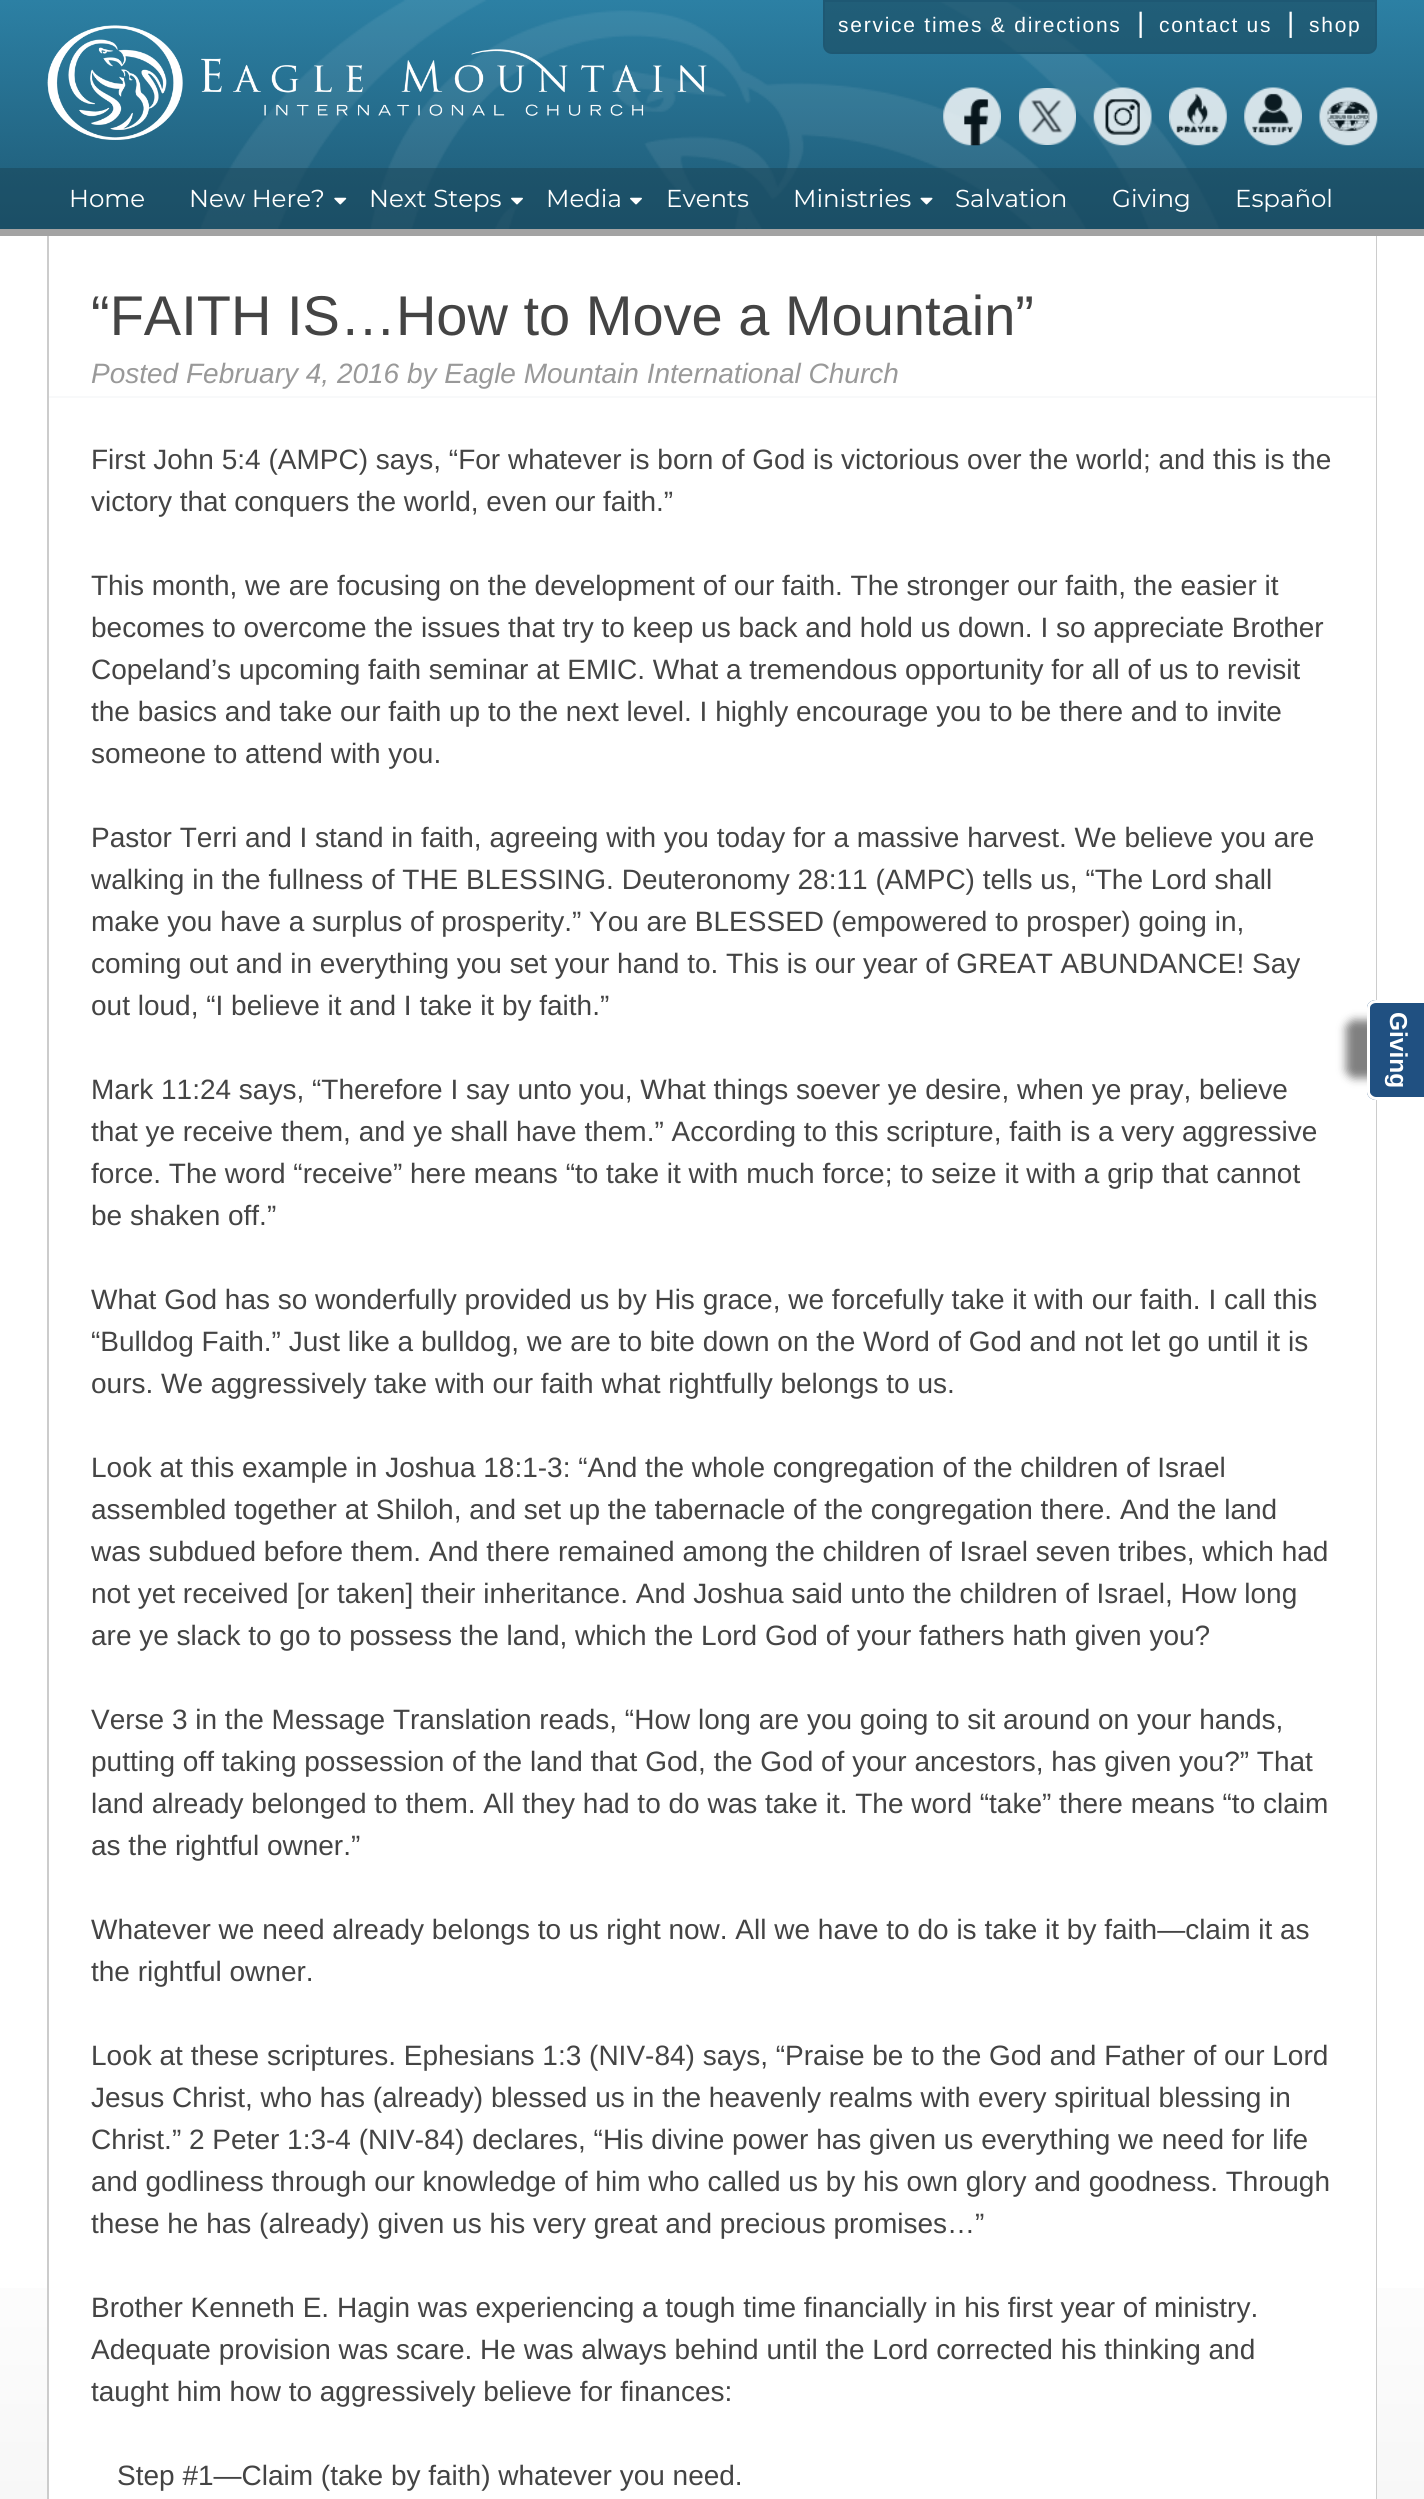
import math
import cairo


def use_color(cr, r, g, b):
  cr.set_source_rgb(r / 255, g / 255, b / 255)

def text(cr, x, y, s, family, size, color, bold=False, italic=False):
  cr.select_font_face(family, cairo.FONT_SLANT_ITALIC if italic else cairo.FONT_SLANT_NORMAL, cairo.FONT_WEIGHT_BOLD if bold else cairo.FONT_WEIGHT_NORMAL)
  cr.set_font_size(size)
  use_color(cr, *color)
  cr.move_to(x, y)
  cr.show_text(s)

def spaced_text(cr, x, y, s, letter, word):
  cr.move_to(x, y)
  for ch in s:
    cr.show_text(ch)
    cr.rel_move_to(letter + word * (ch == ' '), 0)

def box(cr, x, y, w, h, *color):
  use_color(cr, *color)
  cr.rectangle(x, y, w, h)
  cr.fill()

def round_rect(cr, x, y, w, h, r):
  cr.new_sub_path()
  for i, (u, v) in enumerate([(x + w - r, y + h - r), (x + r, y + h - r), (x + r, y + r), (x + w - r, y + r)]):
    cr.arc(u, v, r, i * math.pi / 2, (i + 1) * math.pi / 2)
  cr.close_path()

def shadow(cr, x, y, w, h, r, blur, alpha):
  cr.push_group_with_content(cairo.CONTENT_ALPHA)
  cr.set_operator(cairo.OPERATOR_SOURCE)
  for i in range(15, -16, -2):
    e = blur * i / 6
    if min(w, h) + 2 * e > 0:
      cr.set_source_rgba(0, 0, 0, alpha * math.erfc((i - 1) / 8.5) / 2)
      round_rect(cr, x - e, y - e, w + 2 * e, h + 2 * e, max(0, min(r + e + blur * .6, min(w, h) / 2 + e)))
      cr.fill()
  cr.mask(cr.pop_group())

def picture(cr, path, x, y, w, h):
  cr.save()
  cr.set_source_surface(cairo.ImageSurface.create_from_png(path), x, y)
  cr.rectangle(x, y, w, h)
  cr.fill()
  cr.restore()

def draw(cr):
  use_color(cr, 255, 255, 255)
  cr.paint()
  picture(cr, "img_01.png", 0, 0, 1424, 229)
  picture(cr, "img_02.png", 47, 25, 660, 115)
  cr.set_source_rgba(0.098, 0.282, 0.361, 0.6)
  cr.new_path()
  cr.move_to(824, 1)
  cr.line_to(1376, 1)
  cr.line_to(1376, 45)
  cr.curve_to(1376, 49.5, 1372.5, 53, 1368, 53)
  cr.line_to(832, 53)
  cr.curve_to(827.5, 53, 824, 49.5, 824, 45)
  cr.close_path()
  cr.fill_preserve()
  use_color(cr, 30, 88, 115)
  cr.stroke()
  picture(cr, "img_03.png", 943, 87, 58, 59)
  picture(cr, "img_04.png", 1019, 88, 57, 57)
  picture(cr, "img_05.png", 1093, 87, 59, 59)
  picture(cr, "img_06.png", 1169, 87, 58, 59)
  picture(cr, "img_07.png", 1244, 87, 58, 59)
  picture(cr, "img_08.png", 1319, 87, 59, 59)
  cr.set_source_rgba(0.098, 0.282, 0.361, 0.6)
  cr.rectangle(0, 168, 1424, 61)
  cr.fill()
  box(cr, 0, 229, 1424, 7, 163, 163, 163)
  picture(cr, "img_09.png", 334, 197, 13, 8)
  picture(cr, "img_10.png", 511, 197, 12, 8)
  picture(cr, "img_11.png", 630, 197, 12, 8)
  picture(cr, "img_12.png", 920, 197, 13, 8)
  gradient = cairo.LinearGradient(712, 236, 712, 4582)
  gradient.add_color_stop_rgba(0, 1, 1, 1, 1)
  gradient.add_color_stop_rgba(0.45, 1, 1, 1, 1)
  gradient.add_color_stop_rgba(1, 0.757, 0.757, 0.757, 1)
  cr.set_source(gradient)
  cr.rectangle(0, 2288, 1424, 211)
  cr.fill()
  box(cr, 49, 2288, 1327, 211, 255, 255, 255)
  use_color(cr, 204, 204, 204)
  cr.set_fill_rule(cairo.FILL_RULE_EVEN_ODD)
  cr.new_path()
  cr.move_to(47, 236)
  cr.line_to(1377, 236)
  cr.line_to(1377, 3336)
  cr.curve_to(1377, 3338, 1375, 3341, 1372, 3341)
  cr.line_to(52, 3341)
  cr.curve_to(50, 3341, 47, 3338, 47, 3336)
  cr.close_path()
  cr.move_to(49, 236)
  cr.line_to(1376, 236)
  cr.line_to(1376, 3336)
  cr.curve_to(1376, 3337, 1374, 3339, 1372, 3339)
  cr.line_to(52, 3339)
  cr.curve_to(51, 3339, 49, 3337, 49, 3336)
  cr.close_path()
  cr.fill()
  box(cr, 49, 396, 1327, 2, 248, 249, 250)
  use_color(cr, 0, 0, 0)
  shadow(cr, 1346, 1020, 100, 58, 9, 4.5, 0.5)
  use_color(cr, 32, 80, 129)
  cr.set_fill_rule(cairo.FILL_RULE_WINDING)
  cr.new_path()
  cr.move_to(1424, 1000)
  cr.line_to(1424, 1100)
  cr.line_to(1376, 1100)
  cr.curve_to(1371, 1100, 1367, 1096, 1367, 1092)
  cr.line_to(1367, 1008)
  cr.curve_to(1367, 1003, 1371, 1000, 1376, 1000)
  cr.close_path()
  cr.fill()
  use_color(cr, 255, 255, 255)
  cr.set_fill_rule(cairo.FILL_RULE_EVEN_ODD)
  cr.new_path()
  cr.move_to(1424, 1000)
  cr.line_to(1424, 1100)
  cr.line_to(1376, 1100)
  cr.curve_to(1371, 1100, 1367, 1096, 1367, 1092)
  cr.line_to(1367, 1008)
  cr.curve_to(1367, 1003, 1371, 1000, 1376, 1000)
  cr.close_path()
  cr.move_to(1424, 1003)
  cr.line_to(1424, 1097)
  cr.line_to(1376, 1097)
  cr.curve_to(1373, 1097, 1370, 1094, 1370, 1092)
  cr.line_to(1370, 1008)
  cr.curve_to(1370, 1005, 1373, 1003, 1376, 1003)
  cr.close_path()
  cr.fill()
  cr.select_font_face("Liberation Sans")
  cr.set_font_size(21)
  spaced_text(cr, 838, 32, "service times & directions", 1.75, 0)
  text(cr, 1137, 32, "|", "Liberation Sans", 28, (255, 255, 255))
  cr.set_font_size(21)
  spaced_text(cr, 1159, 32, "contact us", 1.75, 0)
  text(cr, 1287, 32, "|", "Liberation Sans", 28, (255, 255, 255))
  cr.set_font_size(21)
  spaced_text(cr, 1309, 32, "shop", 1.75, 0)
  text(cr, 69, 207, "Home", "Montserrat", 24.5, (255, 255, 255))
  text(cr, 189, 207, "New Here?", "Montserrat", 24.5, (255, 255, 255))
  text(cr, 369, 207, "Next Steps", "Montserrat", 24.5, (255, 255, 255))
  text(cr, 546, 207, "Media", "Montserrat", 24.5, (255, 255, 255))
  text(cr, 666, 207, "Events", "Montserrat", 24.5, (255, 255, 255))
  text(cr, 793, 207, "Ministries", "Montserrat", 24.5, (255, 255, 255))
  text(cr, 955, 207, "Salvation", "Montserrat", 24.5, (255, 255, 255))
  text(cr, 1112, 207, "Giving", "Montserrat", 24.5, (255, 255, 255))
  text(cr, 1235, 207, "Español", "Montserrat", 24.5, (255, 255, 255))
  text(cr, 91, 335, "“FAITH IS…How to Move a Mountain”", "Liberation Sans", 56, (68, 68, 68))
  text(cr, 91, 383, "Posted February 4, 2016 by Eagle Mountain International Church", "Liberation Sans", 28, (153, 153, 153), italic=True)
  text(cr, 91, 469, "First John 5:4 (AMPC) says, “For whatever is born of God is victorious over the world; and this is the", "Liberation Sans", 28, (68, 68, 68))
  text(cr, 91, 511, "victory that conquers the world, even our faith.”", "Liberation Sans", 28, (68, 68, 68))
  text(cr, 91, 595, "This month, we are focusing on the development of our faith. The stronger our faith, the easier it", "Liberation Sans", 28, (68, 68, 68))
  text(cr, 91, 637, "becomes to overcome the issues that try to keep us back and hold us down. I so appreciate Brother", "Liberation Sans", 28, (68, 68, 68))
  text(cr, 91, 679, "Copeland’s upcoming faith seminar at EMIC. What a tremendous opportunity for all of us to revisit", "Liberation Sans", 28, (68, 68, 68))
  text(cr, 91, 721, "the basics and take our faith up to the next level. I highly encourage you to be there and to invite", "Liberation Sans", 28, (68, 68, 68))
  text(cr, 91, 763, "someone to attend with you.", "Liberation Sans", 28, (68, 68, 68))
  text(cr, 91, 847, "Pastor Terri and I stand in faith, agreeing with you today for a massive harvest. We believe you are", "Liberation Sans", 28, (68, 68, 68))
  text(cr, 91, 889, "walking in the fullness of THE BLESSING. Deuteronomy 28:11 (AMPC) tells us, “The Lord shall", "Liberation Sans", 28, (68, 68, 68))
  text(cr, 91, 931, "make you have a surplus of prosperity.” You are BLESSED (empowered to prosper) going in,", "Liberation Sans", 28, (68, 68, 68))
  text(cr, 91, 973, "coming out and in everything you set your hand to. This is our year of GREAT ABUNDANCE! Say", "Liberation Sans", 28, (68, 68, 68))
  text(cr, 91, 1015, "out loud, “I believe it and I take it by faith.”", "Liberation Sans", 28, (68, 68, 68))
  text(cr, 91, 1099, "Mark 11:24 says, “Therefore I say unto you, What things soever ye desire, when ye pray, believe", "Liberation Sans", 28, (68, 68, 68))
  text(cr, 91, 1141, "that ye receive them, and ye shall have them.” According to this scripture, faith is a very aggressive", "Liberation Sans", 28, (68, 68, 68))
  text(cr, 91, 1183, "force. The word “receive” here means “to take it with much force; to seize it with a grip that cannot", "Liberation Sans", 28, (68, 68, 68))
  text(cr, 91, 1225, "be shaken off.”", "Liberation Sans", 28, (68, 68, 68))
  text(cr, 91, 1309, "What God has so wonderfully provided us by His grace, we forcefully take it with our faith. I call this", "Liberation Sans", 28, (68, 68, 68))
  text(cr, 91, 1351, "“Bulldog Faith.” Just like a bulldog, we are to bite down on the Word of God and not let go until it is", "Liberation Sans", 28, (68, 68, 68))
  text(cr, 91, 1393, "ours. We aggressively take with our faith what rightfully belongs to us.", "Liberation Sans", 28, (68, 68, 68))
  text(cr, 91, 1477, "Look at this example in Joshua 18:1-3: “And the whole congregation of the children of Israel", "Liberation Sans", 28, (68, 68, 68))
  text(cr, 91, 1519, "assembled together at Shiloh, and set up the tabernacle of the congregation there. And the land", "Liberation Sans", 28, (68, 68, 68))
  text(cr, 91, 1561, "was subdued before them. And there remained among the children of Israel seven tribes, which had", "Liberation Sans", 28, (68, 68, 68))
  text(cr, 91, 1603, "not yet received [or taken] their inheritance. And Joshua said unto the children of Israel, How long", "Liberation Sans", 28, (68, 68, 68))
  text(cr, 91, 1645, "are ye slack to go to possess the land, which the Lord God of your fathers hath given you?", "Liberation Sans", 28, (68, 68, 68))
  text(cr, 91, 1729, "Verse 3 in the Message Translation reads, “How long are you going to sit around on your hands,", "Liberation Sans", 28, (68, 68, 68))
  text(cr, 91, 1771, "putting off taking possession of the land that God, the God of your ancestors, has given you?” That", "Liberation Sans", 28, (68, 68, 68))
  text(cr, 91, 1813, "land already belonged to them. All they had to do was take it. The word “take” there means “to claim", "Liberation Sans", 28, (68, 68, 68))
  text(cr, 91, 1855, "as the rightful owner.”", "Liberation Sans", 28, (68, 68, 68))
  text(cr, 91, 1939, "Whatever we need already belongs to us right now. All we have to do is take it by faith—claim it as", "Liberation Sans", 28, (68, 68, 68))
  text(cr, 91, 1981, "the rightful owner.", "Liberation Sans", 28, (68, 68, 68))
  text(cr, 91, 2065, "Look at these scriptures. Ephesians 1:3 (NIV-84) says, “Praise be to the God and Father of our Lord", "Liberation Sans", 28, (68, 68, 68))
  text(cr, 91, 2107, "Jesus Christ, who has (already) blessed us in the heavenly realms with every spiritual blessing in", "Liberation Sans", 28, (68, 68, 68))
  text(cr, 91, 2149, "Christ.” 2 Peter 1:3-4 (NIV-84) declares, “His divine power has given us everything we need for life", "Liberation Sans", 28, (68, 68, 68))
  text(cr, 91, 2191, "and godliness through our knowledge of him who called us by his own glory and goodness. Through", "Liberation Sans", 28, (68, 68, 68))
  text(cr, 91, 2233, "these he has (already) given us his very great and precious promises…”", "Liberation Sans", 28, (68, 68, 68))
  text(cr, 91, 2317, "Brother Kenneth E. Hagin was experiencing a tough time financially in his first year of ministry.", "Liberation Sans", 28, (68, 68, 68))
  text(cr, 91, 2359, "Adequate provision was scare. He was always behind until the Lord corrected his thinking and", "Liberation Sans", 28, (68, 68, 68))
  text(cr, 91, 2401, "taught him how to aggressively believe for finances:", "Liberation Sans", 28, (68, 68, 68))
  text(cr, 117, 2485, "Step #1—Claim (take by faith) whatever you need.", "Liberation Sans", 28, (68, 68, 68))
  cr.save()
  cr.translate(1390, 1012)
  cr.rotate(90 * math.pi / 180)
  text(cr, 0, 0, "Giving", "Liberation Sans", 24.5, (255, 255, 255), bold=True)
  cr.restore()


surface = cairo.ImageSurface(cairo.FORMAT_RGB24, 1424, 2499)
cr = cairo.Context(surface)
options = cairo.FontOptions()
options.set_hint_metrics(cairo.HINT_METRICS_OFF)
options.set_hint_style(cairo.HINT_STYLE_NONE)
cr.set_font_options(options)
cr.set_miter_limit(4)
draw(cr)
surface.write_to_png("out.png")
